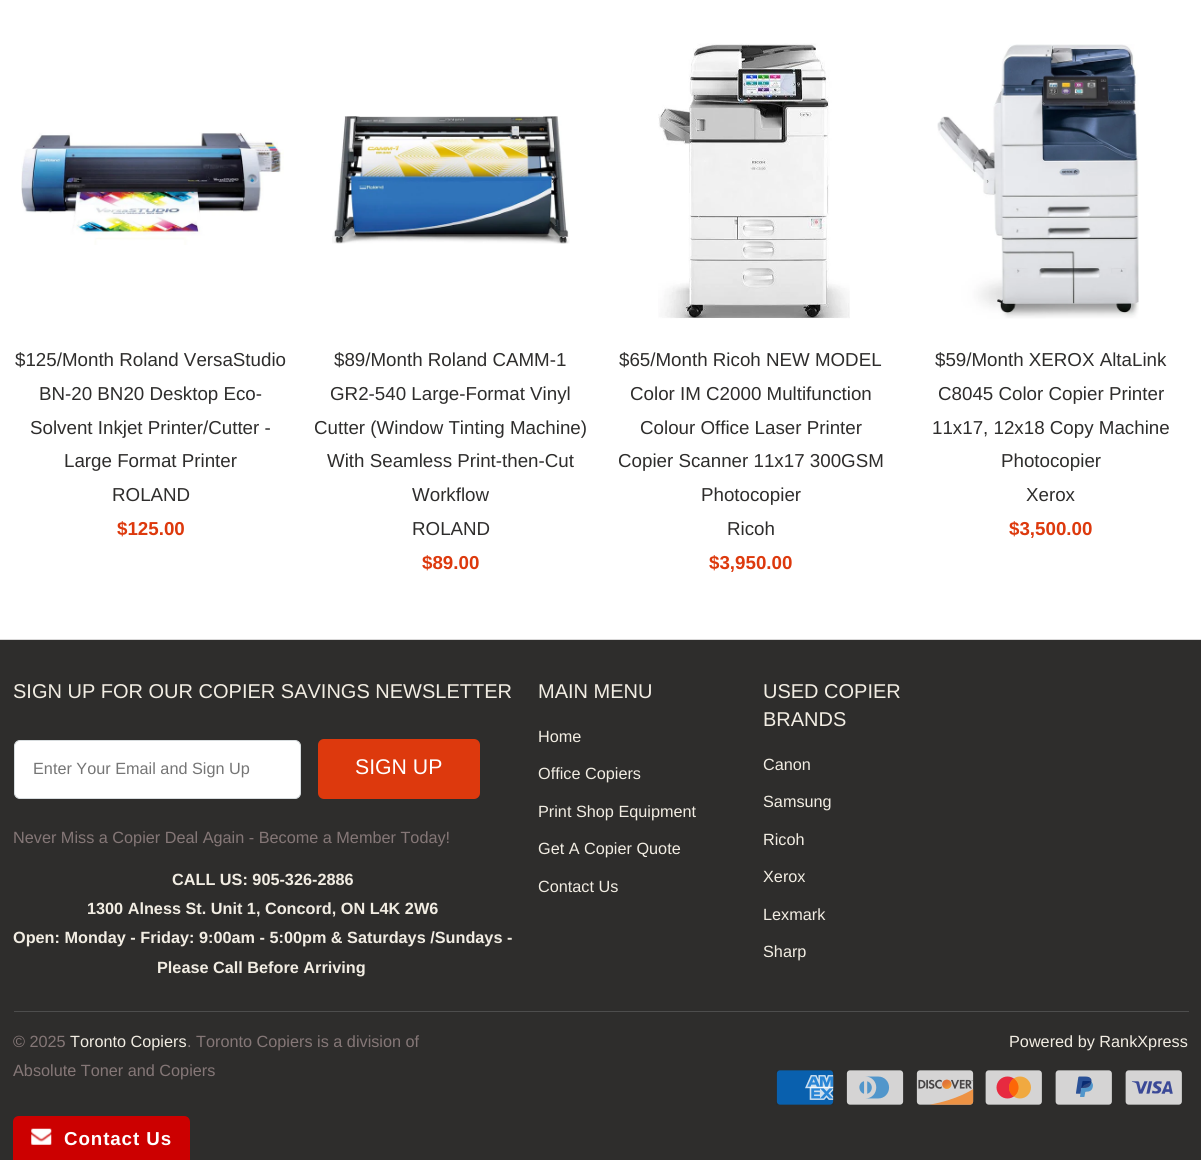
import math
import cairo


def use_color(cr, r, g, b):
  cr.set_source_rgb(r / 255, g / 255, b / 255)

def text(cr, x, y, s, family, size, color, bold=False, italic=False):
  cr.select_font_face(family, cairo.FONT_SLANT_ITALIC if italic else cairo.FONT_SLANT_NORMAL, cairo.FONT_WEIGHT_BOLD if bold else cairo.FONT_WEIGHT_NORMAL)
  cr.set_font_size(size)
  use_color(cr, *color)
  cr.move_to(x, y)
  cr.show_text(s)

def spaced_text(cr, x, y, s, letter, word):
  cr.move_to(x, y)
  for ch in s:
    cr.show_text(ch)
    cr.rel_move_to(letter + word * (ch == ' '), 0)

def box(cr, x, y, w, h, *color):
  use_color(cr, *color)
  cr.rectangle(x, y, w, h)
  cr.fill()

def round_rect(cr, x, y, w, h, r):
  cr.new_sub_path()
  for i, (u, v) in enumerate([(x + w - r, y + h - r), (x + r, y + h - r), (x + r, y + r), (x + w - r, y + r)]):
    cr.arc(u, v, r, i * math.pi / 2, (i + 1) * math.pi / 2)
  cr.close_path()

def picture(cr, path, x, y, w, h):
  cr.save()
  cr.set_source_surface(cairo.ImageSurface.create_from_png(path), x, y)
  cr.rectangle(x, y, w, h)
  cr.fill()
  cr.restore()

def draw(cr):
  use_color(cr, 255, 255, 255)
  cr.paint()
  picture(cr, "img_01.png", 21, 132, 263, 113)
  picture(cr, "img_02.png", 332, 116, 238, 128)
  picture(cr, "img_03.png", 658, 43, 192, 276)
  picture(cr, "img_04.png", 937, 44, 202, 275)
  box(cr, 0, 640, 1201, 520, 46, 45, 44)
  box(cr, 0, 639, 1201, 1, 217, 216, 216)
  use_color(cr, 255, 255, 255)
  round_rect(cr, 14.5, 740.5, 286, 58, 5.5)
  cr.fill_preserve()
  use_color(cr, 215, 220, 222)
  cr.set_line_width(1)
  cr.stroke()
  use_color(cr, 221, 57, 13)
  round_rect(cr, 318, 739, 162, 60, 6)
  cr.fill()
  box(cr, 14, 1011, 1175, 1, 77, 77, 77)
  picture(cr, "img_05.png", 776, 1070, 58, 35)
  picture(cr, "img_06.png", 846, 1070, 58, 35)
  picture(cr, "img_07.png", 916, 1070, 58, 35)
  picture(cr, "img_08.png", 985, 1070, 57, 35)
  picture(cr, "img_09.png", 1055, 1070, 57, 35)
  picture(cr, "img_10.png", 1125, 1070, 57, 35)
  use_color(cr, 204, 0, 0)
  cr.new_path()
  cr.move_to(19, 1116)
  cr.line_to(184, 1116)
  cr.curve_to(187.5, 1116, 190, 1118.5, 190, 1122)
  cr.line_to(190, 1160)
  cr.line_to(13, 1160)
  cr.line_to(13, 1122)
  cr.curve_to(13, 1118.5, 15.5, 1116, 19, 1116)
  cr.close_path()
  cr.fill()
  picture(cr, "img_11.png", 31, 1128, 21, 17)
  text(cr, 15, 366, "$125/Month Roland VersaStudio", "Liberation Sans", 18.75, (46, 45, 44))
  text(cr, 39, 400, "BN-20 BN20 Desktop Eco-", "Liberation Sans", 18.75, (46, 45, 44))
  text(cr, 30, 434, "Solvent Inkjet Printer/Cutter -", "Liberation Sans", 18.75, (46, 45, 44))
  text(cr, 64, 467, "Large Format Printer", "Liberation Sans", 18.75, (46, 45, 44))
  text(cr, 112, 501, "ROLAND", "Liberation Sans", 18.75, (46, 45, 44))
  text(cr, 117, 535, "$125.00", "Liberation Sans", 18.75, (221, 57, 13), bold=True)
  text(cr, 334, 366, "$89/Month Roland CAMM-1", "Liberation Sans", 18.75, (46, 45, 44))
  text(cr, 330, 400, "GR2-540 Large-Format Vinyl", "Liberation Sans", 18.75, (46, 45, 44))
  text(cr, 314, 434, "Cutter (Window Tinting Machine)", "Liberation Sans", 18.75, (46, 45, 44))
  text(cr, 327, 467, "With Seamless Print-then-Cut", "Liberation Sans", 18.75, (46, 45, 44))
  text(cr, 412, 501, "Workflow", "Liberation Sans", 18.75, (46, 45, 44))
  text(cr, 412, 535, "ROLAND", "Liberation Sans", 18.75, (46, 45, 44))
  text(cr, 422, 569, "$89.00", "Liberation Sans", 18.75, (221, 57, 13), bold=True)
  text(cr, 619, 366, "$65/Month Ricoh NEW MODEL", "Liberation Sans", 18.75, (46, 45, 44))
  text(cr, 630, 400, "Color IM C2000 Multifunction", "Liberation Sans", 18.75, (46, 45, 44))
  text(cr, 640, 434, "Colour Office Laser Printer", "Liberation Sans", 18.75, (46, 45, 44))
  text(cr, 618, 467, "Copier Scanner 11x17 300GSM", "Liberation Sans", 18.75, (46, 45, 44))
  text(cr, 701, 501, "Photocopier", "Liberation Sans", 18.75, (46, 45, 44))
  text(cr, 727, 535, "Ricoh", "Liberation Sans", 18.75, (46, 45, 44))
  text(cr, 709, 569, "$3,950.00", "Liberation Sans", 18.75, (221, 57, 13), bold=True)
  text(cr, 935, 366, "$59/Month XEROX AltaLink", "Liberation Sans", 18.75, (46, 45, 44))
  text(cr, 938, 400, "C8045 Color Copier Printer", "Liberation Sans", 18.75, (46, 45, 44))
  text(cr, 932, 434, "11x17, 12x18 Copy Machine", "Liberation Sans", 18.75, (46, 45, 44))
  text(cr, 1001, 467, "Photocopier", "Liberation Sans", 18.75, (46, 45, 44))
  text(cr, 1026, 501, "Xerox", "Liberation Sans", 18.75, (46, 45, 44))
  text(cr, 1009, 535, "$3,500.00", "Liberation Sans", 18.75, (221, 57, 13), bold=True)
  text(cr, 13, 698, "SIGN UP FOR OUR COPIER SAVINGS NEWSLETTER", "Liberation Sans", 20, (242, 237, 227))
  text(cr, 33, 774, "Enter Your Email and Sign Up", "Liberation Sans", 16.25, (117, 117, 117))
  text(cr, 355, 774, "SIGN UP", "Liberation Sans", 21.25, (255, 255, 255))
  text(cr, 13, 843, "Never Miss a Copier Deal Again - Become a Member Today!", "Liberation Sans", 16.25, (133, 119, 119))
  text(cr, 172, 885, "CALL US: 905-326-2886", "Liberation Sans", 16.25, (242, 237, 227), bold=True)
  text(cr, 87, 914, "1300 Alness St. Unit 1, Concord, ON L4K 2W6", "Liberation Sans", 16.25, (242, 237, 227), bold=True)
  text(cr, 13, 943, "Open: Monday - Friday: 9:00am - 5:00pm & Saturdays /Sundays -", "Liberation Sans", 16.25, (242, 237, 227), bold=True)
  text(cr, 157, 973, "Please Call Before Arriving", "Liberation Sans", 16.25, (242, 237, 227), bold=True)
  text(cr, 538, 698, "MAIN MENU", "Liberation Sans", 20, (242, 237, 227))
  text(cr, 538, 742, "Home", "Liberation Sans", 16.25, (242, 237, 227))
  text(cr, 538, 779, "Office Copiers", "Liberation Sans", 16.25, (242, 237, 227))
  text(cr, 538, 817, "Print Shop Equipment", "Liberation Sans", 16.25, (242, 237, 227))
  text(cr, 538, 854, "Get A Copier Quote", "Liberation Sans", 16.25, (242, 237, 227))
  text(cr, 538, 892, "Contact Us", "Liberation Sans", 16.25, (242, 237, 227))
  text(cr, 763, 698, "USED COPIER", "Liberation Sans", 20, (242, 237, 227))
  text(cr, 763, 726, "BRANDS", "Liberation Sans", 20, (242, 237, 227))
  text(cr, 763, 770, "Canon", "Liberation Sans", 16.25, (242, 237, 227))
  text(cr, 763, 807, "Samsung", "Liberation Sans", 16.25, (242, 237, 227))
  text(cr, 763, 845, "Ricoh", "Liberation Sans", 16.25, (242, 237, 227))
  text(cr, 763, 882, "Xerox", "Liberation Sans", 16.25, (242, 237, 227))
  text(cr, 763, 920, "Lexmark", "Liberation Sans", 16.25, (242, 237, 227))
  text(cr, 763, 957, "Sharp", "Liberation Sans", 16.25, (242, 237, 227))
  text(cr, 13, 1047, "© 2025", "Liberation Sans", 16.25, (133, 119, 119))
  text(cr, 70, 1047, "Toronto Copiers", "Liberation Sans", 16.25, (242, 237, 227))
  text(cr, 187, 1047, ". Toronto Copiers is a division of", "Liberation Sans", 16.25, (133, 119, 119))
  text(cr, 13, 1076, "Absolute Toner and Copiers", "Liberation Sans", 16.25, (133, 119, 119))
  text(cr, 1009, 1047, "Powered by RankXpress", "Liberation Sans", 16.25, (242, 237, 227))
  cr.select_font_face("Liberation Sans", cairo.FONT_SLANT_NORMAL, cairo.FONT_WEIGHT_BOLD)
  cr.set_font_size(18.75)
  use_color(cr, 255, 255, 255)
  spaced_text(cr, 64, 1145, "Contact Us", 0.9, 0)


surface = cairo.ImageSurface(cairo.FORMAT_RGB24, 1201, 1160)
cr = cairo.Context(surface)
options = cairo.FontOptions()
options.set_hint_metrics(cairo.HINT_METRICS_OFF)
options.set_hint_style(cairo.HINT_STYLE_NONE)
cr.set_font_options(options)
cr.set_miter_limit(4)
draw(cr)
surface.write_to_png("out.png")
